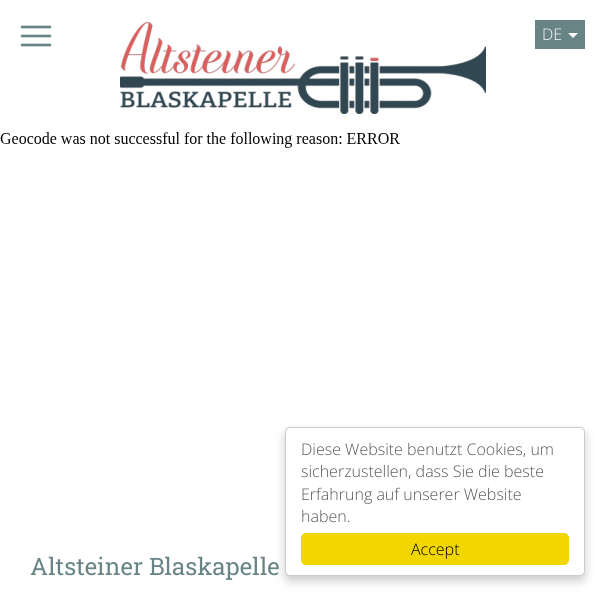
import math
import cairo


def use_color(cr, r, g, b):
  cr.set_source_rgb(r / 255, g / 255, b / 255)

def text(cr, x, y, s, family, size, color, bold=False, italic=False):
  cr.select_font_face(family, cairo.FONT_SLANT_ITALIC if italic else cairo.FONT_SLANT_NORMAL, cairo.FONT_WEIGHT_BOLD if bold else cairo.FONT_WEIGHT_NORMAL)
  cr.set_font_size(size)
  use_color(cr, *color)
  cr.move_to(x, y)
  cr.show_text(s)

def box(cr, x, y, w, h, *color):
  use_color(cr, *color)
  cr.rectangle(x, y, w, h)
  cr.fill()

def round_rect(cr, x, y, w, h, r):
  cr.new_sub_path()
  for i, (u, v) in enumerate([(x + w - r, y + h - r), (x + r, y + h - r), (x + r, y + r), (x + w - r, y + r)]):
    cr.arc(u, v, r, i * math.pi / 2, (i + 1) * math.pi / 2)
  cr.close_path()

def shadow(cr, x, y, w, h, r, blur, alpha):
  cr.push_group_with_content(cairo.CONTENT_ALPHA)
  cr.set_operator(cairo.OPERATOR_SOURCE)
  for i in range(15, -16, -2):
    e = blur * i / 6
    if min(w, h) + 2 * e > 0:
      cr.set_source_rgba(0, 0, 0, alpha * math.erfc((i - 1) / 8.5) / 2)
      round_rect(cr, x - e, y - e, w + 2 * e, h + 2 * e, max(0, min(r + e + blur * .6, min(w, h) / 2 + e)))
      cr.fill()
  cr.mask(cr.pop_group())

def picture(cr, path, x, y, w, h):
  cr.save()
  cr.set_source_surface(cairo.ImageSurface.create_from_png(path), x, y)
  cr.rectangle(x, y, w, h)
  cr.fill()
  cr.restore()

def draw(cr):
  use_color(cr, 255, 255, 255)
  cr.paint()
  cr.new_path()
  cr.move_to(22, 27)
  cr.line_to(50, 27)
  cr.move_to(22, 36)
  cr.line_to(50, 36)
  cr.move_to(22, 36)
  cr.line_to(50, 36)
  cr.move_to(22, 45)
  cr.line_to(50, 45)
  use_color(cr, 104, 132, 135)
  cr.set_line_width(2.6)
  cr.set_line_cap(cairo.LINE_CAP_ROUND)
  cr.stroke()
  picture(cr, "img_01.png", 120, 22, 366, 92)
  box(cr, 535, 20, 50, 29, 104, 132, 135)
  use_color(cr, 255, 255, 255)
  cr.new_path()
  cr.move_to(568, 33)
  cr.line_to(578, 33)
  cr.line_to(573, 38)
  cr.close_path()
  cr.fill()
  use_color(cr, 0, 0, 0)
  shadow(cr, 285, 432, 300, 149, 5, 5, 0.2)
  use_color(cr, 255, 255, 255)
  round_rect(cr, 285.5, 427.5, 299, 148, 4.5)
  cr.fill_preserve()
  use_color(cr, 204, 204, 204)
  cr.set_line_width(1)
  cr.set_line_cap(cairo.LINE_CAP_BUTT)
  cr.stroke()
  use_color(cr, 241, 214, 0)
  round_rect(cr, 301, 533, 268, 32, 5)
  cr.fill()
  picture(cr, "img_02.png", 0, 132, 400, 16)
  text(cr, 542, 40, "DE", "Open Sans Light", 16, (255, 255, 255))
  text(cr, 301, 455, "Diese Website benutzt Cookies, um", "Open Sans Light", 16, (85, 85, 85))
  text(cr, 301, 477, "sicherzustellen, dass Sie die beste", "Open Sans Light", 16, (85, 85, 85))
  text(cr, 301, 500, "Erfahrung auf unserer Website", "Open Sans Light", 16, (85, 85, 85))
  text(cr, 301, 522, "haben.", "Open Sans Light", 16, (85, 85, 85))
  text(cr, 411, 555, "Accept", "Open Sans Light", 16, (0, 0, 0))
  text(cr, 30, 575, "Altsteiner Blaskapelle", "Roboto Slab", 24, (104, 132, 135))


surface = cairo.ImageSurface(cairo.FORMAT_RGB24, 605, 596)
cr = cairo.Context(surface)
options = cairo.FontOptions()
options.set_hint_metrics(cairo.HINT_METRICS_OFF)
options.set_hint_style(cairo.HINT_STYLE_NONE)
cr.set_font_options(options)
cr.set_miter_limit(4)
draw(cr)
surface.write_to_png("out.png")
